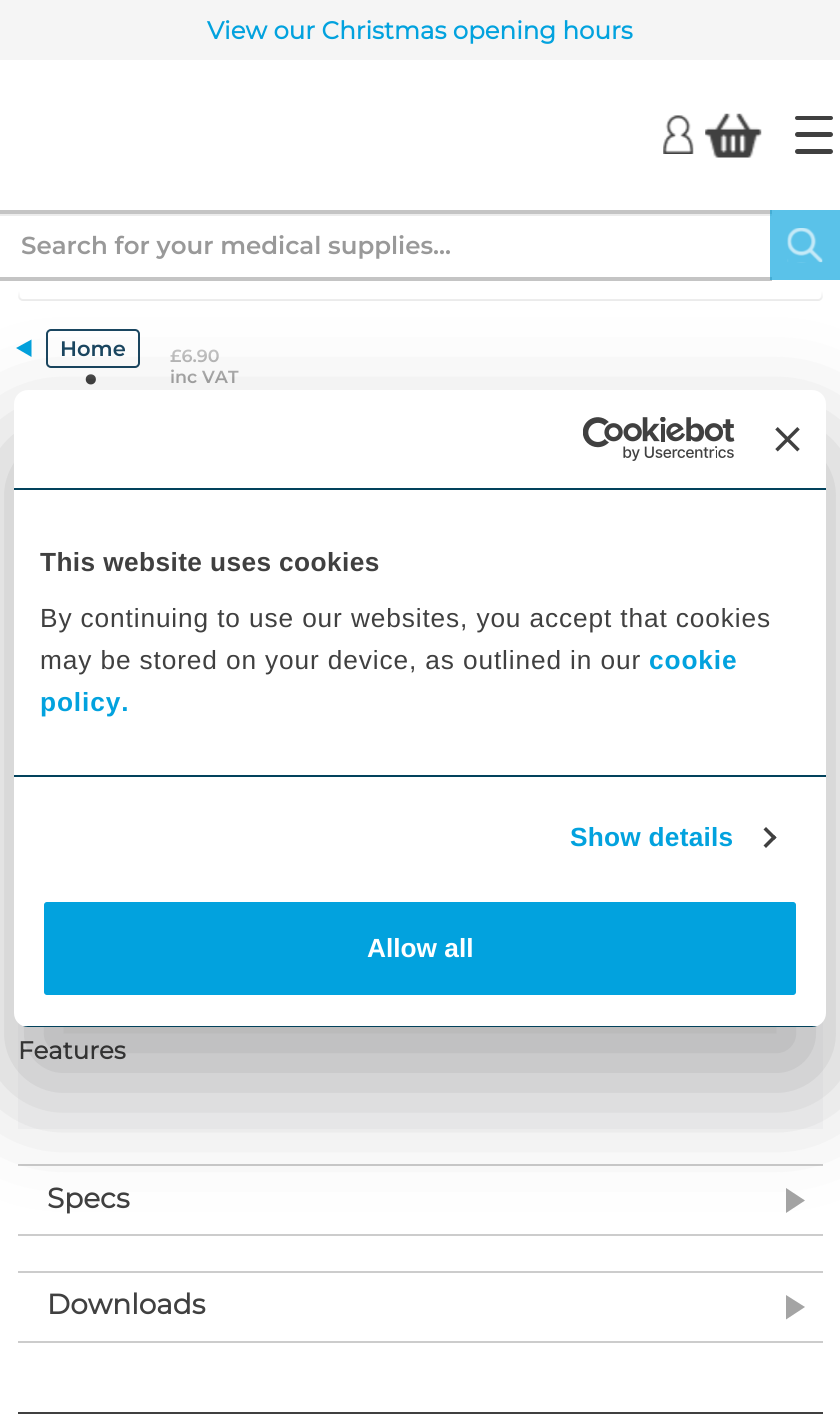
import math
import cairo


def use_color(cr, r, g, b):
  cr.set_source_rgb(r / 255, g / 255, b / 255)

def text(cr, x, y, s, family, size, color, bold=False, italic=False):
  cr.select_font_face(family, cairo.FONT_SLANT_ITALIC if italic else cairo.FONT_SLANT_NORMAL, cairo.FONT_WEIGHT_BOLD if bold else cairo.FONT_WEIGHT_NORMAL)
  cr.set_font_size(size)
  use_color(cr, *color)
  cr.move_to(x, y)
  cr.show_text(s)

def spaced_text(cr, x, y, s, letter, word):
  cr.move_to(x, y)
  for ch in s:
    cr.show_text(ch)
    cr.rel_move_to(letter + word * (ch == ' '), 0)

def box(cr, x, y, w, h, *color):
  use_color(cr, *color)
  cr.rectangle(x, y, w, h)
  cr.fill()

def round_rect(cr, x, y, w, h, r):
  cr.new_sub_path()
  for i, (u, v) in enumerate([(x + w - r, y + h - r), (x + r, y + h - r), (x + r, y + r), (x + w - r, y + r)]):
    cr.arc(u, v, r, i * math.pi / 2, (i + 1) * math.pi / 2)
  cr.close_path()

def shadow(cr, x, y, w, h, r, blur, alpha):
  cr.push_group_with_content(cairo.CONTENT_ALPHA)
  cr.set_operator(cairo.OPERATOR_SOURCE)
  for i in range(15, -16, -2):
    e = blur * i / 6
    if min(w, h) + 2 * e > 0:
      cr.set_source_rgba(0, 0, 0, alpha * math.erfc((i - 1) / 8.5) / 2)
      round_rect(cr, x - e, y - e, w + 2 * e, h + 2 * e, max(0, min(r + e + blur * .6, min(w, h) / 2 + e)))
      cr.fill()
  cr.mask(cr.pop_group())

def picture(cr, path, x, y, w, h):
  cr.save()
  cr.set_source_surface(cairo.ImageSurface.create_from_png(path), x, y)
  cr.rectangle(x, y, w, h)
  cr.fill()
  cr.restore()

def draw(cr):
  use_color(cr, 255, 255, 255)
  cr.paint()
  box(cr, 0, 0, 840, 60, 245, 245, 245)
  round_rect(cr, 19, 229, 803, 71, 4)
  use_color(cr, 60, 60, 60)
  cr.stroke()
  box(cr, 18, 228, 805, 52, 255, 255, 255)
  picture(cr, "img_01.png", 663, 115, 31, 39)
  picture(cr, "img_02.png", 705, 113, 57, 45)
  use_color(cr, 64, 64, 64)
  round_rect(cr, 795, 116, 38, 4, 2)
  cr.fill()
  round_rect(cr, 795, 132, 38, 5, 2.5)
  cr.fill()
  round_rect(cr, 795, 149, 38, 5, 2.5)
  cr.fill()
  box(cr, 0, 214, 772, 2, 236, 236, 236)
  box(cr, 0, 210, 772, 4, 196, 196, 196)
  box(cr, 18, 1021, 805, 108, 249, 249, 250)
  box(cr, 18, 1164, 805, 2, 204, 204, 204)
  box(cr, 18, 1234, 805, 2, 204, 204, 204)
  use_color(cr, 164, 164, 164)
  cr.new_path()
  cr.move_to(786, 1213)
  cr.line_to(786, 1188)
  cr.line_to(805, 1200.5)
  cr.close_path()
  cr.fill()
  box(cr, 18, 1271, 805, 2, 204, 204, 204)
  box(cr, 18, 1341, 805, 2, 204, 204, 204)
  use_color(cr, 164, 164, 164)
  cr.new_path()
  cr.move_to(786, 1319.5)
  cr.line_to(786, 1295)
  cr.line_to(805, 1307)
  cr.close_path()
  cr.fill()
  box(cr, 18, 1412, 805, 2, 64, 64, 64)
  text(cr, 207, 39, "View our Christmas opening hours", "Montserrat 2", 24.5, (2, 162, 222), bold=True)
  text(cr, 21, 254, "Search for your medical supplies...", "Montserrat SemiBold", 24.5, (153, 153, 153))
  text(cr, 84, 384, ".", "Montserrat", 52, (64, 64, 64), bold=True)
  text(cr, 170, 362, "£6.90", "Montserrat SemiBold", 17.5, (164, 164, 164))
  text(cr, 170, 383, "inc VAT", "Montserrat SemiBold", 17.5, (164, 164, 164))
  gradient = cairo.LinearGradient(420, 280, 420, 392)
  gradient.add_color_stop_rgba(0.1, 1, 1, 1, 1)
  gradient.add_color_stop_rgba(0.9, 1, 1, 1, 0)
  cr.set_source(gradient)
  cr.rectangle(18, 280, 805, 99)
  cr.fill()
  box(cr, 0, 277, 772, 4, 196, 196, 196)
  cr.set_source_rgba(0.008, 0.635, 0.871, 0.65)
  cr.rectangle(770, 210, 70, 70)
  cr.fill()
  picture(cr, "img_03.png", 787, 228, 36, 35)
  use_color(cr, 2, 162, 222)
  cr.new_path()
  cr.move_to(31.5, 339.5)
  cr.line_to(31.5, 357)
  cr.line_to(16, 348)
  cr.close_path()
  cr.fill()
  round_rect(cr, 47, 330, 92, 37, 4)
  use_color(cr, 26, 70, 96)
  cr.stroke()
  text(cr, 60, 356, "Home", "Montserrat SemiBold", 21, (26, 70, 96))
  text(cr, 18, 1059, "Features", "Montserrat 2", 24.5, (64, 64, 64), bold=True)
  text(cr, 47, 1208, "Specs", "Montserrat 2", 28, (64, 64, 64), bold=True)
  text(cr, 47, 1314, "Downloads", "Montserrat 2", 28, (64, 64, 64), bold=True)
  use_color(cr, 0, 0, 0)
  shadow(cr, 14, 446, 812, 637, 14, 59.5, 0.3)
  use_color(cr, 255, 255, 255)
  round_rect(cr, 14, 390, 812, 637, 14)
  cr.fill()
  box(cr, 14, 488, 812, 2, 2, 66, 92)
  picture(cr, "img_04.png", 583, 417, 152, 44)
  picture(cr, "img_05.png", 775, 427, 25, 25)
  box(cr, 14, 775, 812, 2, 2, 66, 92)
  cr.select_font_face("Liberation Sans", cairo.FONT_SLANT_NORMAL, cairo.FONT_WEIGHT_BOLD)
  cr.set_font_size(26.25)
  use_color(cr, 64, 64, 64)
  spaced_text(cr, 40, 571, "This website uses cookies", 0.4, 0)
  cr.select_font_face("Liberation Sans")
  spaced_text(cr, 40, 627, "By continuing to use our websites, you accept that cookies", 0.88, 0)
  spaced_text(cr, 40, 669, "may be stored on your device, as outlined in our", 0.88, 0)
  cr.select_font_face("Liberation Sans", cairo.FONT_SLANT_NORMAL, cairo.FONT_WEIGHT_BOLD)
  use_color(cr, 2, 162, 222)
  spaced_text(cr, 649, 669, "cookie", 0.88, 0)
  spaced_text(cr, 40, 711, "policy.", 0.88, 0)
  spaced_text(cr, 570, 846, "Show details", 0.25, 0)
  use_color(cr, 64, 64, 64)
  cr.new_path()
  cr.move_to(766, 827)
  cr.line_to(776.5, 837.5)
  cr.line_to(774, 840)
  cr.line_to(763.5, 829.5)
  cr.close_path()
  cr.fill()
  cr.new_path()
  cr.move_to(774, 835)
  cr.line_to(776.5, 837.5)
  cr.line_to(766, 848)
  cr.line_to(763.5, 845.5)
  cr.close_path()
  cr.fill()
  cr.save()
  round_rect(cr, 14, 390, 812, 637, 14)
  cr.clip()
  box(cr, 23, 1026, 794, 1, 2, 66, 92)
  cr.restore()
  use_color(cr, 2, 162, 222)
  round_rect(cr, 42, 900, 756, 97, 5)
  cr.fill_preserve()
  use_color(cr, 255, 255, 255)
  cr.set_line_width(4)
  cr.stroke()
  text(cr, 367, 957, "Allow all", "Liberation Sans", 26.25, (255, 255, 255), bold=True)


surface = cairo.ImageSurface(cairo.FORMAT_RGB24, 840, 1417)
cr = cairo.Context(surface)
options = cairo.FontOptions()
options.set_hint_metrics(cairo.HINT_METRICS_OFF)
options.set_hint_style(cairo.HINT_STYLE_NONE)
cr.set_font_options(options)
cr.set_miter_limit(4)
draw(cr)
surface.write_to_png("out.png")
